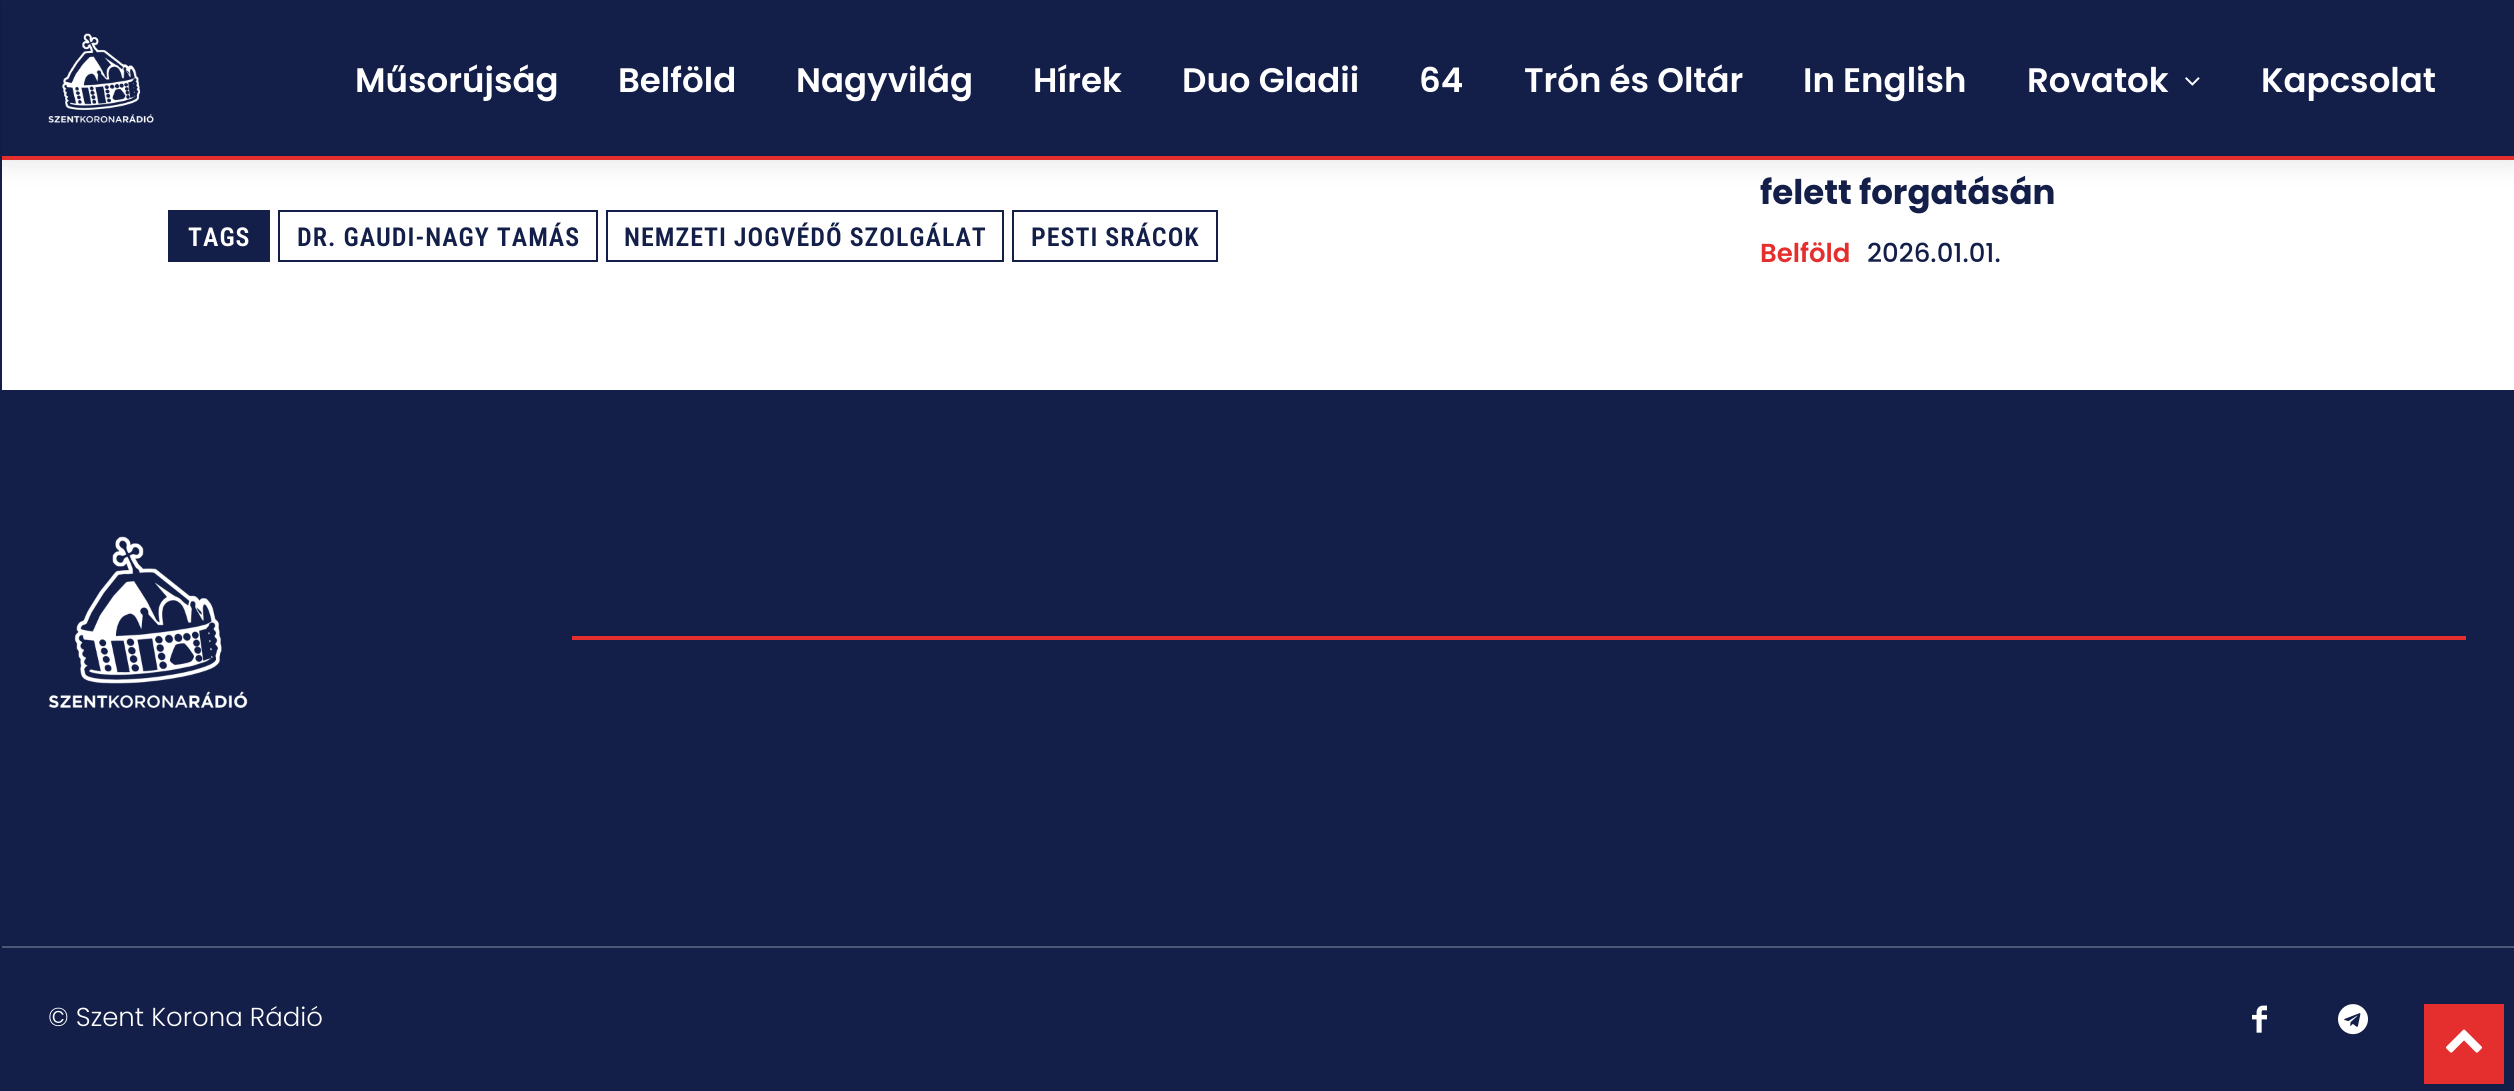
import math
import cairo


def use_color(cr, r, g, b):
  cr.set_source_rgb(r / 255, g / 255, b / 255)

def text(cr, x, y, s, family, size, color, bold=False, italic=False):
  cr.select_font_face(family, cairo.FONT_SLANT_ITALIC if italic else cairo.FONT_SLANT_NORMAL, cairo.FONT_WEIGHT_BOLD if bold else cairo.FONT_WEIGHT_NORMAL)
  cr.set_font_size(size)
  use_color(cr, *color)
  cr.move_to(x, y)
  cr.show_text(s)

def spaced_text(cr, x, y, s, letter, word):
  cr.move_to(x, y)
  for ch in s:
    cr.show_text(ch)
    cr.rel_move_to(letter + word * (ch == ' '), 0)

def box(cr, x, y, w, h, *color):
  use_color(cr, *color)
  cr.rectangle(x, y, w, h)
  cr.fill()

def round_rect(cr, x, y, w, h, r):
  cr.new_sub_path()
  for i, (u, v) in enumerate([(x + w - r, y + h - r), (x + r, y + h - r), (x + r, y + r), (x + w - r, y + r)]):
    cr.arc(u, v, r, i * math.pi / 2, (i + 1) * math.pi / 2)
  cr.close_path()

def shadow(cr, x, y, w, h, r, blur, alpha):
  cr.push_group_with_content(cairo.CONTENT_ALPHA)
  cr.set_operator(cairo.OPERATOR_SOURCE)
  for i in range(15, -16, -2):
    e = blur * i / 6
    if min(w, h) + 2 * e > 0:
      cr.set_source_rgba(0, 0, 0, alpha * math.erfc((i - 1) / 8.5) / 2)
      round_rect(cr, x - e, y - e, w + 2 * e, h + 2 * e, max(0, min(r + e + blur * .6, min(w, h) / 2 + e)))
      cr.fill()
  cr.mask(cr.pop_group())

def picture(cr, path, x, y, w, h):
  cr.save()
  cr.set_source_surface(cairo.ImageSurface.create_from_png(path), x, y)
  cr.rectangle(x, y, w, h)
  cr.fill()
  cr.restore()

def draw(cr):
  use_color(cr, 19, 31, 73)
  cr.paint()
  picture(cr, "img_01.png", 48, 33, 106, 90)
  box(cr, 2, 156, 2512, 4, 229, 46, 46)
  box(cr, 2, 160, 2512, 230, 255, 255, 255)
  cr.save()
  cr.set_fill_rule(cairo.FILL_RULE_EVEN_ODD)
  cr.new_path()
  cr.move_to(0, 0)
  cr.line_to(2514, 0)
  cr.line_to(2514, 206)
  cr.line_to(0, 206)
  cr.close_path()
  cr.move_to(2, 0)
  cr.line_to(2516, 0)
  cr.line_to(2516, 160)
  cr.line_to(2, 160)
  cr.close_path()
  cr.clip()
  use_color(cr, 0, 0, 0)
  shadow(cr, 2, 0, 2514, 160, 0, 15, 0.12)
  cr.restore()
  picture(cr, "img_02.png", 2185, 77, 15, 9)
  box(cr, 168, 210, 102, 52, 19, 31, 73)
  cr.rectangle(279, 211, 318, 50)
  cr.stroke()
  cr.rectangle(607, 211, 396, 50)
  cr.stroke()
  cr.rectangle(1013, 211, 204, 50)
  cr.stroke()
  picture(cr, "img_03.png", 48, 536, 200, 172)
  box(cr, 572, 636, 1894, 4, 229, 46, 46)
  box(cr, 2, 946, 2512, 2, 78, 87, 119)
  picture(cr, "img_04.png", 2252, 1005, 15, 28)
  picture(cr, "img_05.png", 2338, 1004, 30, 31)
  box(cr, 2424, 1004, 80, 80, 229, 46, 46)
  picture(cr, "img_06.png", 2446, 1029, 36, 24)
  text(cr, 355, 92, "Műsorújság", "Poppins SemiBold", 34, (255, 255, 255))
  text(cr, 618, 92, "Belföld", "Poppins SemiBold", 34, (255, 255, 255))
  text(cr, 796, 92, "Nagyvilág", "Poppins SemiBold", 34, (255, 255, 255))
  text(cr, 1033, 92, "Hírek", "Poppins SemiBold", 34, (255, 255, 255))
  text(cr, 1182, 92, "Duo Gladii", "Poppins SemiBold", 34, (255, 255, 255))
  text(cr, 1419, 92, "64", "Poppins SemiBold", 34, (255, 255, 255))
  text(cr, 1524, 92, "Trón és Oltár", "Poppins SemiBold", 34, (255, 255, 255))
  text(cr, 1803, 92, "In English", "Poppins SemiBold", 34, (255, 255, 255))
  text(cr, 2027, 92, "Rovatok", "Poppins SemiBold", 34, (255, 255, 255))
  text(cr, 2261, 92, "Kapcsolat", "Poppins SemiBold", 34, (255, 255, 255))
  cr.select_font_face("Roboto Condensed SemiBold")
  cr.set_font_size(26)
  spaced_text(cr, 188, 246, "TAGS", 1, 0)
  use_color(cr, 19, 31, 73)
  spaced_text(cr, 297, 246, "DR. GAUDI-NAGY TAMÁS", 1, 0)
  spaced_text(cr, 624, 246, "NEMZETI JOGVÉDŐ SZOLGÁLAT", 1, 0)
  spaced_text(cr, 1031, 246, "PESTI SRÁCOK", 1, 0)
  text(cr, 1760, 204, "felett forgatásán", "Poppins", 34, (19, 31, 73), bold=True)
  text(cr, 1760, 262, "Belföld", "Poppins SemiBold", 26, (229, 46, 46))
  text(cr, 1867, 262, "2026.01.01.", "Poppins Medium", 26, (19, 31, 73))
  text(cr, 48, 1026, "© Szent Korona Rádió", "Poppins Light", 26, (255, 255, 255))


surface = cairo.ImageSurface(cairo.FORMAT_RGB24, 2514, 1091)
cr = cairo.Context(surface)
options = cairo.FontOptions()
options.set_hint_metrics(cairo.HINT_METRICS_OFF)
options.set_hint_style(cairo.HINT_STYLE_NONE)
cr.set_font_options(options)
cr.set_miter_limit(4)
draw(cr)
surface.write_to_png("out.png")
